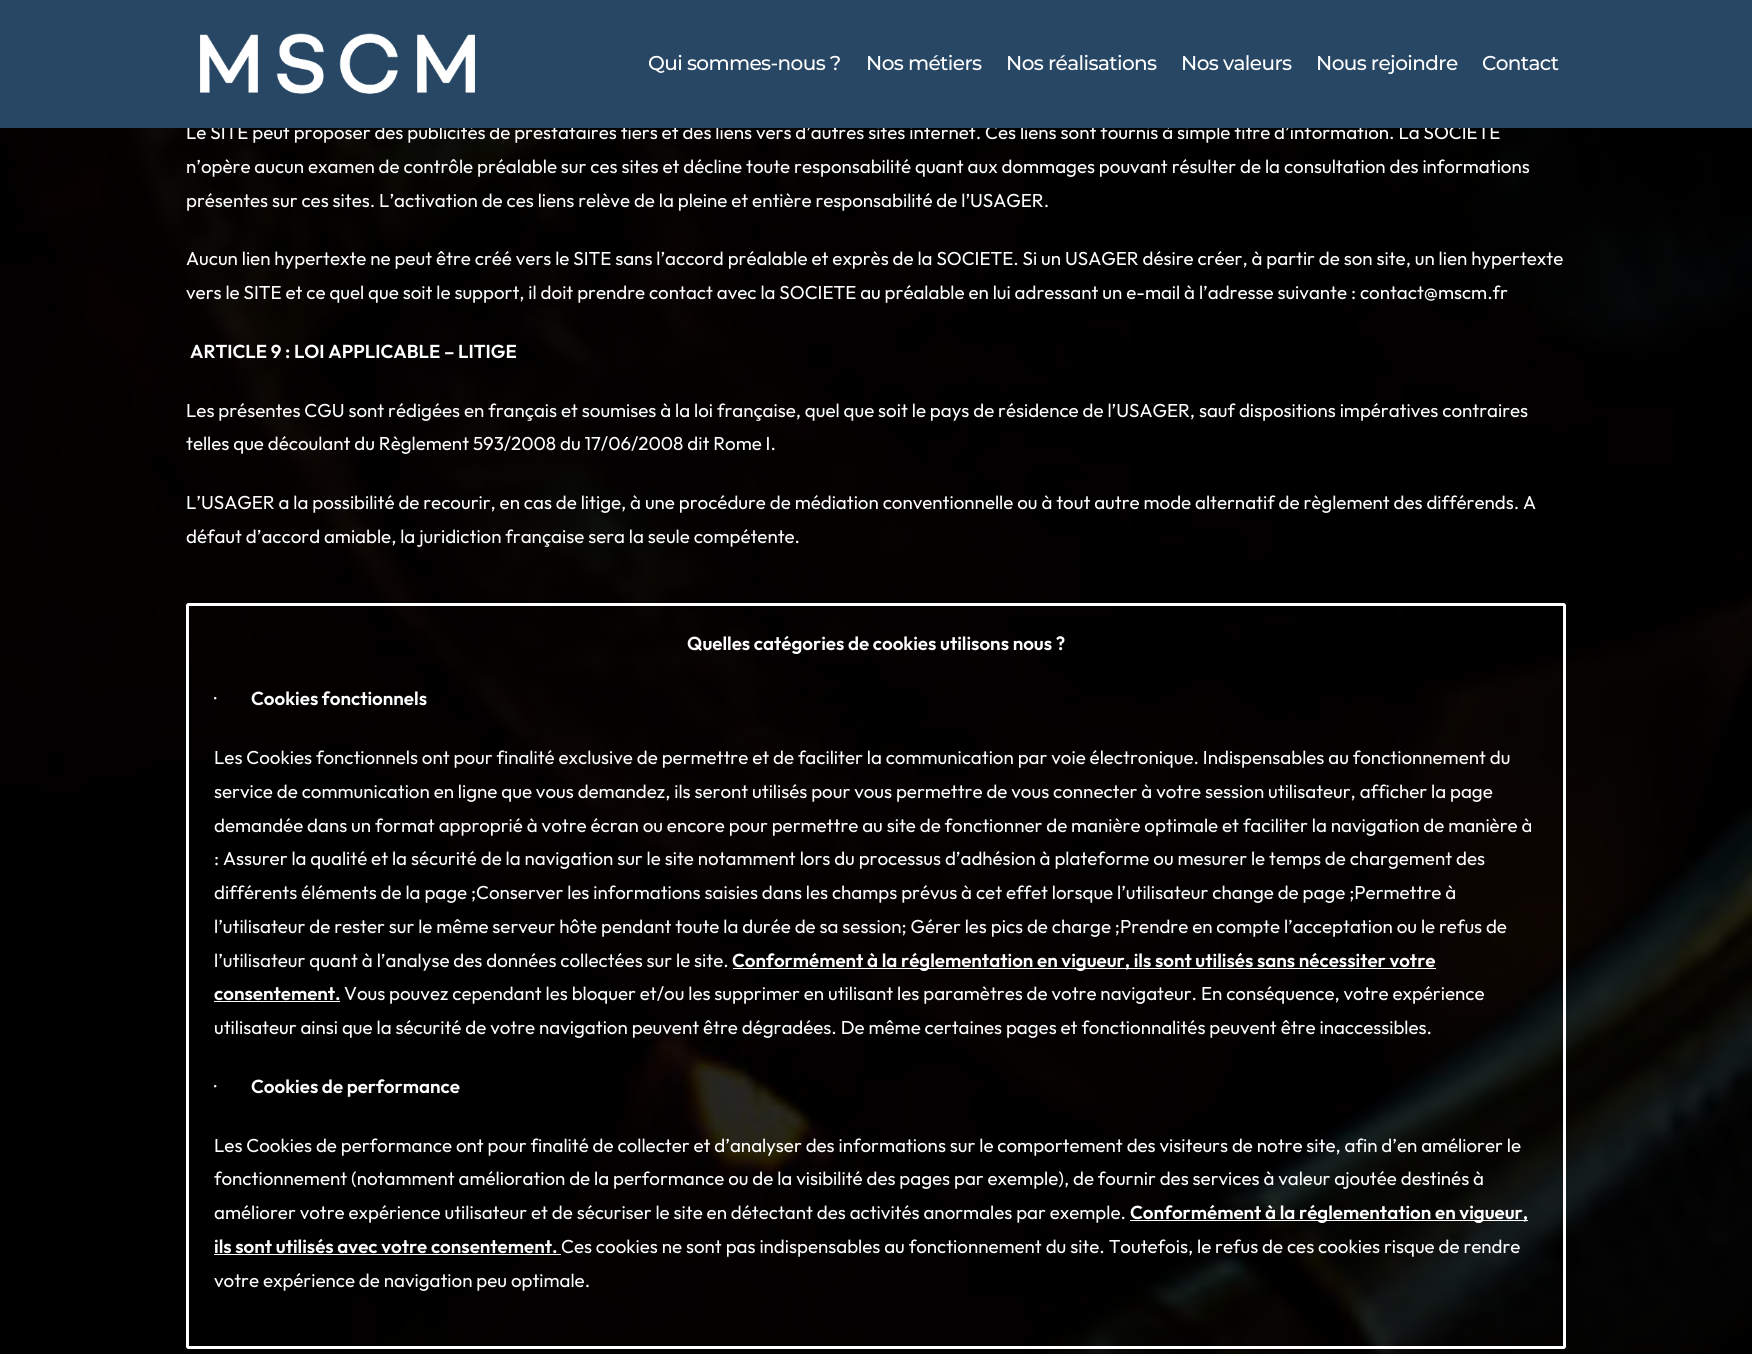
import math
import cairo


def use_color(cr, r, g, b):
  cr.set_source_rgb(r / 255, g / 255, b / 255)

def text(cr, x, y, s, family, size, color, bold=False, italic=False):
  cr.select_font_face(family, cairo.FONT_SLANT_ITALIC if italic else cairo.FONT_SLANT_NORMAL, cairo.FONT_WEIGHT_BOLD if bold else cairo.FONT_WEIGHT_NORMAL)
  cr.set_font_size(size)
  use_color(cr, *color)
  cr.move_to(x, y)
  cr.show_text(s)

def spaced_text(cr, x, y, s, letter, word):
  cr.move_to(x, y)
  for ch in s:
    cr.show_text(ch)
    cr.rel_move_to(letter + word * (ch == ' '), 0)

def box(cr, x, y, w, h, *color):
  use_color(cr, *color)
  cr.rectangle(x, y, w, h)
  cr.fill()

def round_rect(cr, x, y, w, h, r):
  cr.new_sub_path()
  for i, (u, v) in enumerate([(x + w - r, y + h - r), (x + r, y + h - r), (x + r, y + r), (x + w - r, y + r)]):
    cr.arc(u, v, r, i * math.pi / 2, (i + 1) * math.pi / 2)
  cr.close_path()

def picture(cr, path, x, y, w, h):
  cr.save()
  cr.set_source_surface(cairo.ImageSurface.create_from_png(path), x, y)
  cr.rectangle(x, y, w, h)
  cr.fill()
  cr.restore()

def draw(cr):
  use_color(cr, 255, 255, 255)
  cr.paint()
  picture(cr, "img_02.png", 0, 128, 1752, 1226)
  round_rect(cr, 187.5, 604.5, 1377, 743, 1)
  use_color(cr, 255, 255, 255)
  cr.set_line_width(3)
  cr.stroke()
  box(cr, 733, 968, 703, 1, 255, 255, 255)
  box(cr, 214, 1001, 126, 1, 255, 255, 255)
  box(cr, 1130, 1220, 398, 1, 255, 255, 255)
  box(cr, 214, 1254, 347, 1, 255, 255, 255)
  text(cr, 186, 139, "Le SITE peut proposer des publicités de prestataires tiers et des liens vers d’autres sites internet. Ces liens sont fournis à simple titre d’information. La SOCIETE", "Outfit", 18.75, (255, 255, 255))
  box(cr, 0, 0, 1752, 128, 40, 71, 101)
  cr.select_font_face("Montserrat Medium")
  cr.set_font_size(20)
  use_color(cr, 255, 255, 255)
  spaced_text(cr, 1482, 70, "Contact", -0.6, 0)
  spaced_text(cr, 1316, 70, "Nous rejoindre", -0.6, 0)
  spaced_text(cr, 1181, 70, "Nos valeurs", -0.6, 0)
  spaced_text(cr, 1006, 70, "Nos réalisations", -0.6, 0)
  spaced_text(cr, 866, 70, "Nos métiers", -0.6, 0)
  spaced_text(cr, 648, 70, "Qui sommes-nous ?", -0.6, 0)
  picture(cr, "img_01.png", 200, 33, 275, 61)
  text(cr, 186, 173, "n’opère aucun examen de contrôle préalable sur ces sites et décline toute responsabilité quant aux dommages pouvant résulter de la consultation des informations", "Outfit", 18.75, (255, 255, 255))
  text(cr, 186, 207, "présentes sur ces sites. L’activation de ces liens relève de la pleine et entière responsabilité de l’USAGER.", "Outfit", 18.75, (255, 255, 255))
  text(cr, 186, 265, "Aucun lien hypertexte ne peut être créé vers le SITE sans l’accord préalable et exprès de la SOCIETE. Si un USAGER désire créer, à partir de son site, un lien hypertexte", "Outfit", 18.75, (255, 255, 255))
  text(cr, 186, 299, "vers le SITE et ce quel que soit le support, il doit prendre contact avec la SOCIETE au préalable en lui adressant un e-mail à l’adresse suivante : contact@mscm.fr", "Outfit", 18.75, (255, 255, 255))
  text(cr, 190, 358, "ARTICLE 9 : LOI APPLICABLE – LITIGE", "Outfit SemiBold", 18.75, (255, 255, 255))
  text(cr, 186, 417, "Les présentes CGU sont rédigées en français et soumises à la loi française, quel que soit le pays de résidence de l’USAGER, sauf dispositions impératives contraires", "Outfit", 18.75, (255, 255, 255))
  text(cr, 186, 450, "telles que découlant du Règlement 593/2008 du 17/06/2008 dit Rome I.", "Outfit", 18.75, (255, 255, 255))
  text(cr, 186, 509, "L’USAGER a la possibilité de recourir, en cas de litige, à une procédure de médiation conventionnelle ou à tout autre mode alternatif de règlement des différends. A", "Outfit", 18.75, (255, 255, 255))
  text(cr, 186, 543, "défaut d’accord amiable, la juridiction française sera la seule compétente.", "Outfit", 18.75, (255, 255, 255))
  text(cr, 687, 650, "Quelles catégories de cookies utilisons nous ?", "Outfit SemiBold", 18.75, (255, 255, 255))
  text(cr, 214, 705, "·", "Outfit", 18.75, (255, 255, 255))
  text(cr, 251, 705, "Cookies fonctionnels", "Outfit SemiBold", 18.75, (255, 255, 255))
  text(cr, 214, 764, "Les Cookies fonctionnels ont pour finalité exclusive de permettre et de faciliter la communication par voie électronique. Indispensables au fonctionnement du", "Outfit", 18.75, (255, 255, 255))
  text(cr, 214, 798, "service de communication en ligne que vous demandez, ils seront utilisés pour vous permettre de vous connecter à votre session utilisateur, afficher la page", "Outfit", 18.75, (255, 255, 255))
  text(cr, 214, 832, "demandée dans un format approprié à votre écran ou encore pour permettre au site de fonctionner de manière optimale et faciliter la navigation de manière à", "Outfit", 18.75, (255, 255, 255))
  text(cr, 214, 865, ": Assurer la qualité et la sécurité de la navigation sur le site notamment lors du processus d’adhésion à plateforme ou mesurer le temps de chargement des", "Outfit", 18.75, (255, 255, 255))
  text(cr, 214, 899, "différents éléments de la page ;Conserver les informations saisies dans les champs prévus à cet effet lorsque l’utilisateur change de page ;Permettre à", "Outfit", 18.75, (255, 255, 255))
  text(cr, 214, 933, "l’utilisateur de rester sur le même serveur hôte pendant toute la durée de sa session; Gérer les pics de charge ;Prendre en compte l’acceptation ou le refus de", "Outfit", 18.75, (255, 255, 255))
  text(cr, 214, 967, "l’utilisateur quant à l’analyse des données collectées sur le site.", "Outfit", 18.75, (255, 255, 255))
  text(cr, 732, 967, "Conformément à la réglementation en vigueur, ils sont utilisés sans nécessiter votre", "Outfit SemiBold", 18.75, (255, 255, 255))
  text(cr, 214, 1000, "consentement.", "Outfit SemiBold", 18.75, (255, 255, 255))
  text(cr, 344, 1000, "Vous pouvez cependant les bloquer et/ou les supprimer en utilisant les paramètres de votre navigateur. En conséquence, votre expérience", "Outfit", 18.75, (255, 255, 255))
  text(cr, 214, 1034, "utilisateur ainsi que la sécurité de votre navigation peuvent être dégradées. De même certaines pages et fonctionnalités peuvent être inaccessibles.", "Outfit", 18.75, (255, 255, 255))
  text(cr, 214, 1093, "·", "Outfit", 18.75, (255, 255, 255))
  text(cr, 251, 1093, "Cookies de performance", "Outfit SemiBold", 18.75, (255, 255, 255))
  text(cr, 214, 1152, "Les Cookies de performance ont pour finalité de collecter et d’analyser des informations sur le comportement des visiteurs de notre site, afin d’en améliorer le", "Outfit", 18.75, (255, 255, 255))
  text(cr, 214, 1185, "fonctionnement (notamment amélioration de la performance ou de la visibilité des pages par exemple), de fournir des services à valeur ajoutée destinés à", "Outfit", 18.75, (255, 255, 255))
  text(cr, 214, 1219, "améliorer votre expérience utilisateur et de sécuriser le site en détectant des activités anormales par exemple.", "Outfit", 18.75, (255, 255, 255))
  text(cr, 1130, 1219, "Conformément à la réglementation en vigueur,", "Outfit SemiBold", 18.75, (255, 255, 255))
  text(cr, 214, 1253, "ils sont utilisés avec votre consentement.", "Outfit SemiBold", 18.75, (255, 255, 255))
  text(cr, 561, 1253, "Ces cookies ne sont pas indispensables au fonctionnement du site. Toutefois, le refus de ces cookies risque de rendre", "Outfit", 18.75, (255, 255, 255))
  text(cr, 214, 1287, "votre expérience de navigation peu optimale.", "Outfit", 18.75, (255, 255, 255))


surface = cairo.ImageSurface(cairo.FORMAT_RGB24, 1752, 1354)
cr = cairo.Context(surface)
options = cairo.FontOptions()
options.set_hint_metrics(cairo.HINT_METRICS_OFF)
options.set_hint_style(cairo.HINT_STYLE_NONE)
cr.set_font_options(options)
cr.set_miter_limit(4)
draw(cr)
surface.write_to_png("out.png")
